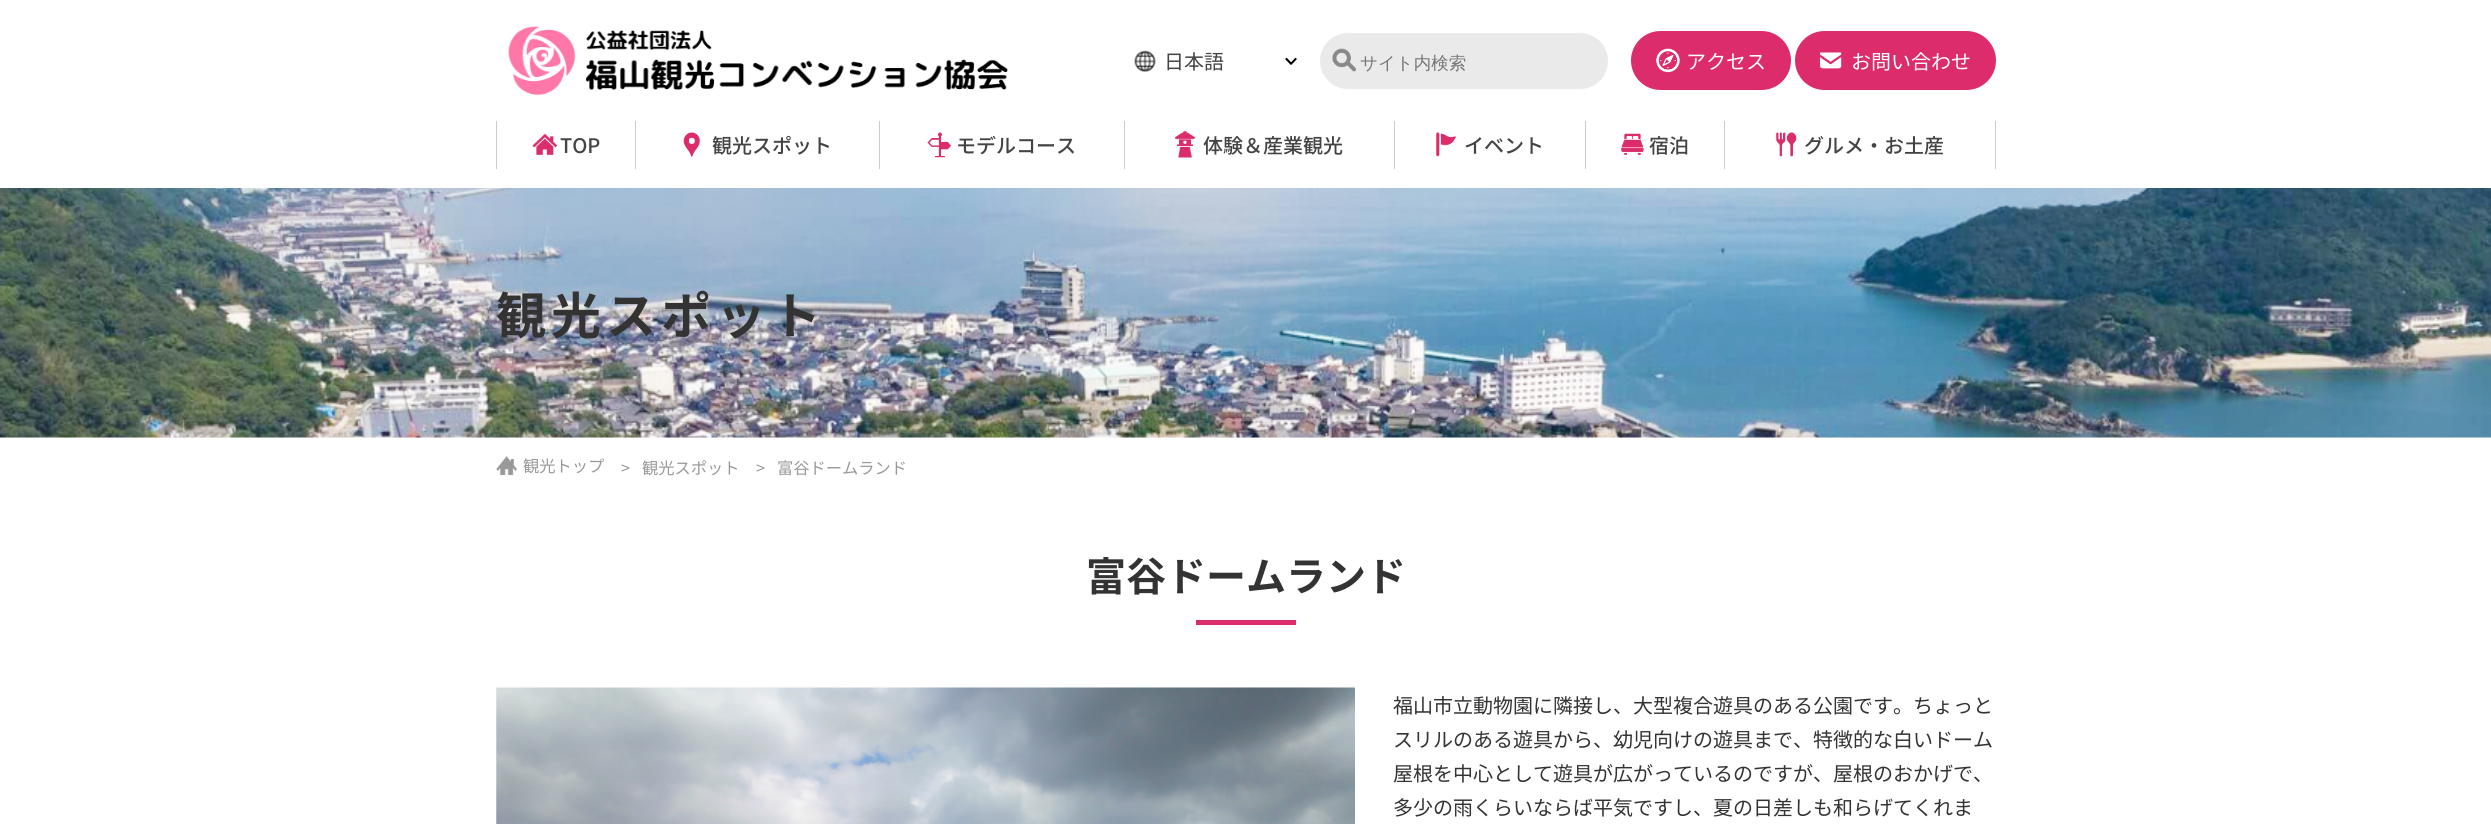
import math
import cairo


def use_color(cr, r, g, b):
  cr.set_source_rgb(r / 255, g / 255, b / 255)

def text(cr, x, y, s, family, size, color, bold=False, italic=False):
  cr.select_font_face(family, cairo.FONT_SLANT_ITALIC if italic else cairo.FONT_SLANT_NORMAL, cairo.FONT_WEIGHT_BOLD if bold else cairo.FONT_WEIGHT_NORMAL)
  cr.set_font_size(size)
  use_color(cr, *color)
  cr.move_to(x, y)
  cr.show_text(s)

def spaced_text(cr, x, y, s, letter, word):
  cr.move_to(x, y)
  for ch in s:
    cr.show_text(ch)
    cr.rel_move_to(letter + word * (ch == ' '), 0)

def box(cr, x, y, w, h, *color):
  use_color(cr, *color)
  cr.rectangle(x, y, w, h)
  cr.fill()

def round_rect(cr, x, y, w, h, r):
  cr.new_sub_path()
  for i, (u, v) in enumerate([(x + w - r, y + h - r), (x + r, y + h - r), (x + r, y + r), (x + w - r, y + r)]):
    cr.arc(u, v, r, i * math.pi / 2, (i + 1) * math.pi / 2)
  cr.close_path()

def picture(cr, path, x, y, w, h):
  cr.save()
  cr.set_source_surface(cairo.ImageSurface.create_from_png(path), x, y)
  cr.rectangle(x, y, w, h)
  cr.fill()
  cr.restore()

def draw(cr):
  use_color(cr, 255, 255, 255)
  cr.paint()
  picture(cr, "img_01.png", 508, 26, 500, 69)
  picture(cr, "img_02.png", 1134, 50, 22, 22)
  picture(cr, "img_03.png", 1285, 57, 12, 8)
  use_color(cr, 234, 234, 234)
  round_rect(cr, 1320, 33, 288, 56, 28)
  cr.fill()
  picture(cr, "img_04.png", 1332, 48, 25, 24)
  cr.save()
  round_rect(cr, 1320, 33, 288, 56, 28)
  cr.clip()
  box(cr, 1358, 39, 247, 41, 234, 234, 234)
  cr.restore()
  use_color(cr, 220, 44, 107)
  round_rect(cr, 1631, 31, 160, 59, 29.5)
  cr.fill()
  picture(cr, "img_05.png", 1656, 48, 24, 25)
  round_rect(cr, 1795, 31, 201, 59, 29.5)
  cr.fill()
  picture(cr, "img_06.png", 1820, 52, 22, 17)
  box(cr, 496, 121, 1, 48, 204, 204, 204)
  box(cr, 635, 121, 1, 48, 204, 204, 204)
  picture(cr, "img_07.png", 532, 133, 26, 22)
  box(cr, 879, 121, 1, 48, 204, 204, 204)
  picture(cr, "img_08.png", 683, 132, 17, 25)
  box(cr, 1124, 121, 1, 48, 204, 204, 204)
  picture(cr, "img_09.png", 927, 132, 25, 26)
  box(cr, 1394, 121, 1, 48, 204, 204, 204)
  picture(cr, "img_10.png", 1175, 131, 20, 27)
  box(cr, 1585, 121, 1, 48, 204, 204, 204)
  picture(cr, "img_11.png", 1436, 132, 20, 25)
  box(cr, 1724, 121, 1, 48, 204, 204, 204)
  picture(cr, "img_12.png", 1621, 133, 23, 22)
  box(cr, 1995, 121, 1, 48, 204, 204, 204)
  picture(cr, "img_13.png", 1776, 132, 21, 25)
  box(cr, 0, 437, 2491, 1, 253, 246, 248)
  picture(cr, "img_14.png", 0, 188, 2491, 250)
  picture(cr, "img_15.png", 496, 456, 21, 19)
  box(cr, 1196, 620, 100, 5, 220, 44, 107)
  picture(cr, "img_16.png", 496, 687, 859, 137)
  text(cr, 1164, 69, "日本語", "Noto Sans JP", 20, (68, 68, 68))
  text(cr, 1360, 69, "サイト内検索", "WenQuanYi Zen Hei Medium", 17.5, (117, 117, 117))
  text(cr, 1686, 69, "アクセス", "Noto Sans JP", 20, (255, 255, 255))
  text(cr, 1851, 69, "お問い合わせ", "Noto Sans JP", 20, (255, 255, 255))
  text(cr, 560, 153, "TOP", "Noto Sans JP Medium", 20, (68, 68, 68))
  text(cr, 712, 153, "観光スポット", "Noto Sans JP Medium", 20, (68, 68, 68))
  text(cr, 956, 153, "モデルコース", "Noto Sans JP Medium", 20, (68, 68, 68))
  text(cr, 1203, 153, "体験＆産業観光", "Noto Sans JP Medium", 20, (68, 68, 68))
  text(cr, 1464, 153, "イベント", "Noto Sans JP Medium", 20, (68, 68, 68))
  text(cr, 1649, 153, "宿泊", "Noto Sans JP Medium", 20, (68, 68, 68))
  text(cr, 1804, 153, "グルメ・お土産", "Noto Sans JP Medium", 20, (68, 68, 68))
  cr.select_font_face("Noto Sans JP", cairo.FONT_SLANT_NORMAL, cairo.FONT_WEIGHT_BOLD)
  cr.set_font_size(50)
  use_color(cr, 51, 51, 51)
  spaced_text(cr, 496, 334, "観光スポット", 5, 0)
  text(cr, 523, 472, "観光トップ", "Noto Sans JP", 16.25, (153, 153, 153))
  text(cr, 621, 474, ">", "Noto Sans JP", 16.25, (153, 153, 153))
  text(cr, 642, 474, "観光スポット", "Noto Sans JP", 16.25, (153, 153, 153))
  text(cr, 756, 474, ">", "Noto Sans JP", 16.25, (153, 153, 153))
  text(cr, 777, 474, "富谷ドームランド", "Noto Sans JP", 16.25, (153, 153, 153))
  text(cr, 1086, 591, "富谷ドームランド", "Noto Sans JP", 40, (51, 51, 51), bold=True)
  text(cr, 1393, 713, "福山市立動物園に隣接し、大型複合遊具のある公園です。ちょっと", "Noto Sans JP", 20, (51, 51, 51))
  text(cr, 1393, 747, "スリルのある遊具から、幼児向けの遊具まで、特徴的な白いドーム", "Noto Sans JP", 20, (51, 51, 51))
  text(cr, 1393, 781, "屋根を中心として遊具が広がっているのですが、屋根のおかげで、", "Noto Sans JP", 20, (51, 51, 51))
  text(cr, 1393, 815, "多少の雨くらいならば平気ですし、夏の日差しも和らげてくれま", "Noto Sans JP", 20, (51, 51, 51))


surface = cairo.ImageSurface(cairo.FORMAT_RGB24, 2491, 824)
cr = cairo.Context(surface)
options = cairo.FontOptions()
options.set_hint_metrics(cairo.HINT_METRICS_OFF)
options.set_hint_style(cairo.HINT_STYLE_NONE)
cr.set_font_options(options)
cr.set_miter_limit(4)
draw(cr)
surface.write_to_png("out.png")
